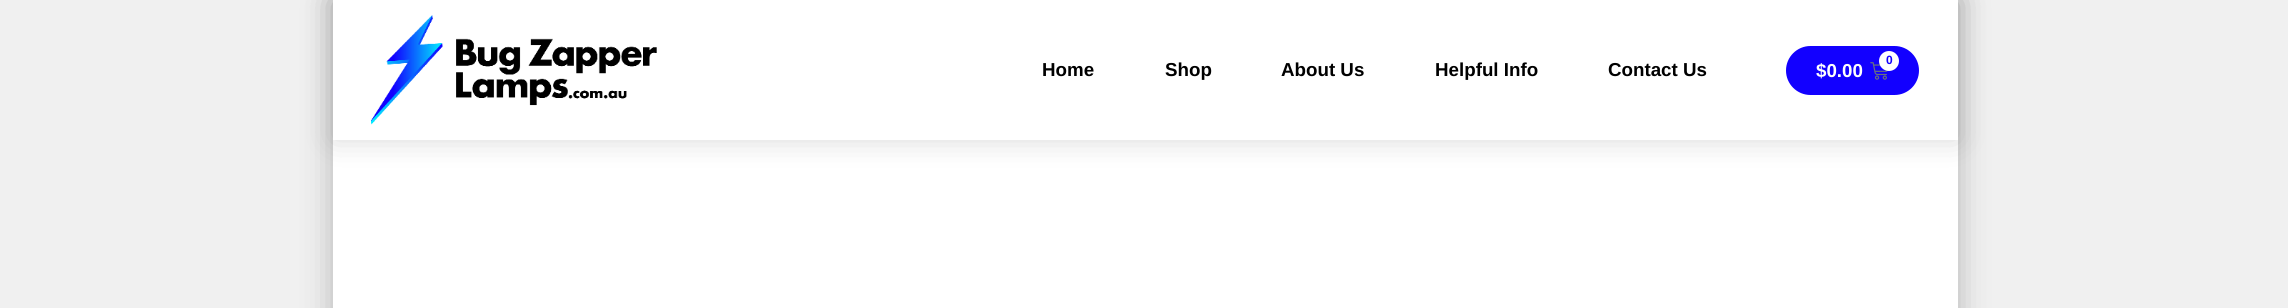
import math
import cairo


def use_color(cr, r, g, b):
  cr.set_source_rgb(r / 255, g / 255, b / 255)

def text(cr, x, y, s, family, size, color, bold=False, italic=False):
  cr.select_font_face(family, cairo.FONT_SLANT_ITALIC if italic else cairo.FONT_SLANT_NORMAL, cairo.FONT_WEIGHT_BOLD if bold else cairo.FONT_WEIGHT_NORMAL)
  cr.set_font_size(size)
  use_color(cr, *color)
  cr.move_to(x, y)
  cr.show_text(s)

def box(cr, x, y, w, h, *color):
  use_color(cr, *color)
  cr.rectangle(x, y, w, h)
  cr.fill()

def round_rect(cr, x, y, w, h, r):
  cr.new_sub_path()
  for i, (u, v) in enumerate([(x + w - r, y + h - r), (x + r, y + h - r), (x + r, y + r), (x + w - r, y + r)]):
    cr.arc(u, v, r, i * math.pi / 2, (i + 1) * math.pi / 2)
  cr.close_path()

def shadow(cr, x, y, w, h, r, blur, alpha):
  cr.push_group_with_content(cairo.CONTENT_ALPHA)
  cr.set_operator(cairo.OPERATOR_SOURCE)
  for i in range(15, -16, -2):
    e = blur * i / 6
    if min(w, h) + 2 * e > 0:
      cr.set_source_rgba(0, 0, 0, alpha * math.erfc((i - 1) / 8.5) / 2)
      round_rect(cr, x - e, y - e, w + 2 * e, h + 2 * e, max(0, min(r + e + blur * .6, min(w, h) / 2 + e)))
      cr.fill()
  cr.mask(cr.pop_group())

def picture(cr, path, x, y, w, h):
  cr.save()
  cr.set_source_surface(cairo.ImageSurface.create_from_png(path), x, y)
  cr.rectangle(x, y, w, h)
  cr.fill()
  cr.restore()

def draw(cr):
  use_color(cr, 240, 240, 240)
  cr.paint()
  use_color(cr, 0, 0, 0)
  shadow(cr, 333, 0, 1625, 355, 0, 15.5, 0.25)
  box(cr, 333, 140, 1625, 168, 255, 255, 255)
  use_color(cr, 0, 0, 0)
  shadow(cr, 333, 0, 1625, 140, 0, 15, 0.15)
  box(cr, 333, 0, 1625, 140, 255, 255, 255)
  picture(cr, "img_01.png", 371, 15, 286, 110)
  use_color(cr, 18, 0, 255)
  round_rect(cr, 1786, 46, 133, 49, 24.5)
  cr.fill()
  picture(cr, "img_02.png", 1870, 62, 18, 18)
  use_color(cr, 255, 255, 255)
  cr.arc(1889, 61, 10, 0, 2 * math.pi)
  cr.fill()
  text(cr, 1042, 76, "Home", "Liberation Sans", 18.75, (0, 0, 0), bold=True)
  text(cr, 1165, 76, "Shop", "Liberation Sans", 18.75, (0, 0, 0), bold=True)
  text(cr, 1281, 76, "About Us", "Liberation Sans", 18.75, (0, 0, 0), bold=True)
  text(cr, 1435, 76, "Helpful Info", "Liberation Sans", 18.75, (0, 0, 0), bold=True)
  text(cr, 1608, 76, "Contact Us", "Liberation Sans", 18.75, (0, 0, 0), bold=True)
  text(cr, 1886, 64, "0", "Liberation Sans", 12, (18, 0, 255), bold=True)
  text(cr, 1816, 77, "$0.00", "Liberation Sans", 18.75, (255, 255, 255), bold=True)


surface = cairo.ImageSurface(cairo.FORMAT_RGB24, 2288, 308)
cr = cairo.Context(surface)
options = cairo.FontOptions()
options.set_hint_metrics(cairo.HINT_METRICS_OFF)
options.set_hint_style(cairo.HINT_STYLE_NONE)
cr.set_font_options(options)
cr.set_miter_limit(4)
draw(cr)
surface.write_to_png("out.png")
